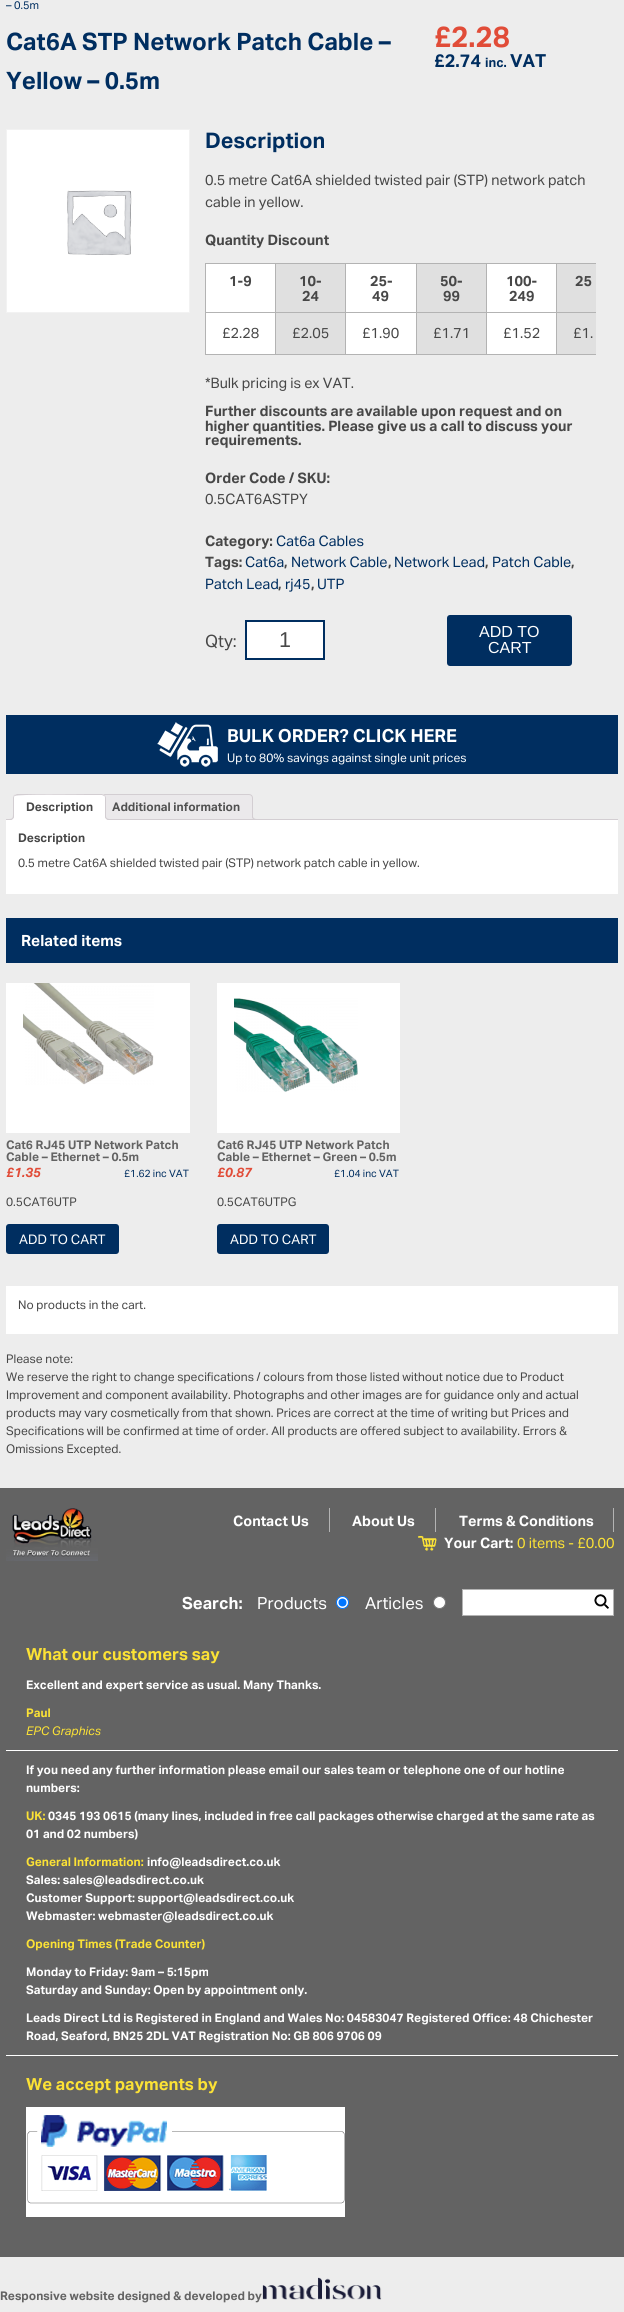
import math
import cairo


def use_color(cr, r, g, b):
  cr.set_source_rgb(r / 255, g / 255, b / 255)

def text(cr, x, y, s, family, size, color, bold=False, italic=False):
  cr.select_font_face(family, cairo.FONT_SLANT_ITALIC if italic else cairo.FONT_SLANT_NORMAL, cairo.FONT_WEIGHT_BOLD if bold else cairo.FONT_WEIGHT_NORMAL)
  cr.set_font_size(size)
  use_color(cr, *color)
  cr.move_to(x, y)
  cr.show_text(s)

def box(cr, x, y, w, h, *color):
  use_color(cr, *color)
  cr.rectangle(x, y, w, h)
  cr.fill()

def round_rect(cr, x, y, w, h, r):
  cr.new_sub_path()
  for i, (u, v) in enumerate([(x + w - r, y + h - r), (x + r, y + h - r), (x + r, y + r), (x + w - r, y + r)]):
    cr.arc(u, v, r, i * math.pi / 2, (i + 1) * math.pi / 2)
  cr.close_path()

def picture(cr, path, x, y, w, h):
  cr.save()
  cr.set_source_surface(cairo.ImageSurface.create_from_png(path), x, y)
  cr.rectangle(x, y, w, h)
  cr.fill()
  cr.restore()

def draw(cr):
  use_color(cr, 237, 237, 237)
  cr.paint()
  cr.rectangle(6.5, 129.5, 183, 183)
  use_color(cr, 242, 242, 242)
  cr.set_line_width(1)
  cr.stroke()
  picture(cr, "img_01.png", 7, 130, 182, 182)
  box(cr, 206, 264, 69, 48, 255, 255, 255)
  box(cr, 556, 263, 40, 1, 179, 179, 179)
  box(cr, 556, 312, 40, 1, 179, 179, 179)
  box(cr, 556, 354, 40, 1, 179, 179, 179)
  box(cr, 556, 312, 1, 43, 179, 179, 179)
  box(cr, 486, 312, 71, 1, 179, 179, 179)
  box(cr, 556, 263, 1, 50, 179, 179, 179)
  box(cr, 486, 263, 71, 1, 179, 179, 179)
  box(cr, 486, 354, 71, 1, 179, 179, 179)
  box(cr, 486, 312, 1, 43, 179, 179, 179)
  box(cr, 416, 312, 71, 1, 179, 179, 179)
  box(cr, 486, 263, 1, 50, 179, 179, 179)
  box(cr, 416, 263, 71, 1, 179, 179, 179)
  box(cr, 416, 354, 71, 1, 179, 179, 179)
  box(cr, 416, 312, 1, 43, 179, 179, 179)
  box(cr, 345, 312, 72, 1, 179, 179, 179)
  box(cr, 416, 263, 1, 50, 179, 179, 179)
  box(cr, 345, 263, 72, 1, 179, 179, 179)
  box(cr, 345, 354, 72, 1, 179, 179, 179)
  box(cr, 345, 312, 1, 43, 179, 179, 179)
  box(cr, 275, 312, 71, 1, 179, 179, 179)
  box(cr, 345, 263, 1, 50, 179, 179, 179)
  box(cr, 275, 263, 71, 1, 179, 179, 179)
  box(cr, 275, 354, 71, 1, 179, 179, 179)
  box(cr, 275, 312, 1, 43, 179, 179, 179)
  box(cr, 205, 312, 71, 1, 179, 179, 179)
  box(cr, 275, 263, 1, 50, 179, 179, 179)
  box(cr, 205, 263, 71, 1, 179, 179, 179)
  box(cr, 205, 354, 71, 1, 179, 179, 179)
  box(cr, 205, 312, 1, 43, 179, 179, 179)
  box(cr, 205, 263, 1, 50, 179, 179, 179)
  box(cr, 276, 264, 69, 48, 224, 224, 224)
  box(cr, 346, 264, 70, 48, 255, 255, 255)
  box(cr, 417, 264, 69, 48, 224, 224, 224)
  box(cr, 487, 264, 69, 48, 255, 255, 255)
  box(cr, 557, 264, 39, 48, 224, 224, 224)
  box(cr, 206, 313, 69, 41, 255, 255, 255)
  box(cr, 276, 313, 69, 41, 224, 224, 224)
  box(cr, 346, 313, 70, 41, 255, 255, 255)
  box(cr, 417, 313, 69, 41, 224, 224, 224)
  box(cr, 487, 313, 69, 41, 255, 255, 255)
  box(cr, 557, 313, 39, 41, 224, 224, 224)
  use_color(cr, 255, 255, 255)
  cr.rectangle(246, 621, 78, 38)
  cr.fill_preserve()
  use_color(cr, 0, 46, 96)
  cr.set_line_width(2)
  cr.stroke()
  round_rect(cr, 447, 615, 125, 51, 3)
  cr.fill()
  box(cr, 6, 715, 612, 59, 0, 46, 96)
  picture(cr, "img_02.png", 157, 722, 61, 45)
  use_color(cr, 235, 233, 235)
  cr.new_path()
  cr.move_to(103, 794.5)
  cr.line_to(249, 794.5)
  cr.curve_to(251, 794.5, 252.5, 796, 252.5, 798)
  cr.line_to(252.5, 819.5)
  cr.line_to(99.5, 819.5)
  cr.line_to(99.5, 798)
  cr.curve_to(99.5, 796, 101, 794.5, 103, 794.5)
  cr.close_path()
  cr.fill_preserve()
  use_color(cr, 211, 206, 210)
  cr.set_line_width(1)
  cr.stroke()
  cr.save()
  cr.rectangle(6, 794, 612, 26)
  cr.clip()
  use_color(cr, 235, 233, 235)
  cr.new_path()
  cr.move_to(250, 817)
  cr.curve_to(250, 820.5, 251.5, 822, 255, 822)
  cr.line_to(255, 820)
  cr.curve_to(253.5, 819.5, 252.5, 818.5, 252, 817)
  cr.close_path()
  cr.fill()
  cr.restore()
  cr.set_fill_rule(cairo.FILL_RULE_EVEN_ODD)
  cr.new_path()
  cr.move_to(252, 815)
  cr.line_to(257, 815)
  cr.line_to(257, 820)
  cr.curve_to(254.5, 820, 252, 819, 252, 816)
  cr.close_path()
  cr.move_to(253, 815)
  cr.line_to(257, 815)
  cr.line_to(257, 819)
  cr.curve_to(255, 819, 253, 818.5, 253, 816)
  cr.close_path()
  cr.fill()
  box(cr, 6, 819, 612, 1, 211, 206, 210)
  use_color(cr, 255, 255, 255)
  cr.new_path()
  cr.move_to(17, 794)
  cr.line_to(102, 794)
  cr.curve_to(104, 794, 106, 796, 106, 798)
  cr.line_to(106, 820)
  cr.line_to(13, 820)
  cr.line_to(13, 798)
  cr.curve_to(13, 796, 15, 794, 17, 794)
  cr.close_path()
  cr.fill()
  use_color(cr, 211, 206, 210)
  cr.set_fill_rule(cairo.FILL_RULE_WINDING)
  cr.new_path()
  cr.move_to(17, 794)
  cr.line_to(14, 795)
  cr.line_to(15, 796)
  cr.curve_to(17, 794, 80, 795, 88, 795)
  cr.line_to(102, 795)
  cr.line_to(104, 796)
  cr.line_to(105, 795)
  cr.line_to(102, 794)
  cr.close_path()
  cr.fill()
  cr.new_path()
  cr.move_to(106, 820)
  cr.line_to(106, 798)
  cr.curve_to(106, 797, 105.5, 796, 105, 795)
  cr.line_to(104, 796)
  cr.curve_to(105, 796, 105, 797, 105, 798)
  cr.line_to(105, 819)
  cr.close_path()
  cr.fill()
  use_color(cr, 255, 255, 255)
  cr.new_path()
  cr.move_to(106, 820)
  cr.line_to(105, 819)
  cr.line_to(14, 819)
  cr.line_to(13, 820)
  cr.close_path()
  cr.fill()
  use_color(cr, 211, 206, 210)
  cr.new_path()
  cr.move_to(13, 820)
  cr.line_to(14, 819)
  cr.line_to(14, 798)
  cr.curve_to(14, 797, 14, 796, 15, 796)
  cr.line_to(14, 795)
  cr.curve_to(13.5, 796, 13, 797, 13, 798)
  cr.close_path()
  cr.fill()
  cr.save()
  cr.rectangle(6, 794, 612, 26)
  cr.clip()
  use_color(cr, 255, 255, 255)
  cr.new_path()
  cr.move_to(11, 820)
  cr.line_to(11, 822)
  cr.curve_to(14.5, 822, 16, 820.5, 16, 817)
  cr.line_to(14, 817)
  cr.curve_to(13.5, 818.5, 12.5, 819.5, 11, 820)
  cr.close_path()
  cr.fill()
  cr.restore()
  cr.set_fill_rule(cairo.FILL_RULE_EVEN_ODD)
  cr.new_path()
  cr.move_to(9, 815)
  cr.line_to(14, 815)
  cr.curve_to(14, 818.5, 12.5, 820, 9, 820)
  cr.close_path()
  cr.move_to(9, 815)
  cr.line_to(13, 815)
  cr.curve_to(13, 818, 12, 819, 9, 819)
  cr.close_path()
  cr.fill()
  cr.save()
  cr.set_fill_rule(cairo.FILL_RULE_WINDING)
  cr.rectangle(6, 794, 612, 26)
  cr.clip()
  use_color(cr, 255, 255, 255)
  cr.new_path()
  cr.move_to(103, 817)
  cr.curve_to(103, 820.5, 104.5, 822, 108, 822)
  cr.line_to(108, 820)
  cr.curve_to(106.5, 819.5, 105.5, 818.5, 105, 817)
  cr.close_path()
  cr.fill()
  cr.restore()
  cr.new_path()
  cr.move_to(105, 815)
  cr.line_to(110, 815)
  cr.line_to(110, 820)
  cr.curve_to(107.5, 820, 105, 819, 105, 816)
  cr.close_path()
  cr.move_to(106, 815)
  cr.line_to(110, 815)
  cr.line_to(110, 819)
  cr.curve_to(108, 819, 106, 818.5, 106, 816)
  cr.close_path()
  cr.fill()
  box(cr, 6, 820, 612, 74, 255, 255, 255)
  box(cr, 6, 918, 612, 45, 0, 46, 96)
  box(cr, 6, 983, 184, 150, 255, 255, 255)
  picture(cr, "img_03.png", 23, 983, 131, 102)
  use_color(cr, 0, 46, 96)
  round_rect(cr, 6, 1224, 113, 30, 3)
  cr.fill()
  box(cr, 217, 983, 183, 150, 255, 255, 255)
  picture(cr, "img_04.png", 234, 998, 124, 94)
  use_color(cr, 0, 46, 96)
  round_rect(cr, 217, 1224, 112, 30, 3)
  cr.fill()
  box(cr, 6, 1286, 612, 48, 255, 255, 255)
  box(cr, 0, 1488, 624, 769, 99, 99, 99)
  picture(cr, "img_05.png", 6, 1508, 92, 53)
  box(cr, 329, 1508, 1, 24, 179, 179, 179)
  box(cr, 435, 1508, 1, 24, 179, 179, 179)
  box(cr, 613, 1508, 1, 24, 179, 179, 179)
  picture(cr, "img_06.png", 417, 1535, 20, 16)
  use_color(cr, 255, 255, 255)
  cr.arc(342.5, 1602.5, 6, 0, 2 * math.pi)
  cr.fill_preserve()
  use_color(cr, 0, 117, 255)
  cr.stroke()
  cr.arc(342.5, 1602.5, 4, 0, 2 * math.pi)
  cr.fill()
  use_color(cr, 255, 255, 255)
  cr.arc(439.5, 1602.5, 6, 0, 2 * math.pi)
  cr.fill_preserve()
  use_color(cr, 118, 118, 118)
  cr.stroke()
  use_color(cr, 255, 255, 255)
  cr.rectangle(462.5, 1589.5, 151, 26)
  cr.fill_preserve()
  use_color(cr, 179, 179, 179)
  cr.stroke()
  picture(cr, "img_07.png", 594, 1594, 15, 15)
  box(cr, 6, 1750, 612, 1, 255, 255, 255)
  box(cr, 6, 2055, 612, 1, 255, 255, 255)
  box(cr, 26, 2107, 319, 110, 255, 255, 255)
  picture(cr, "img_08.png", 27, 2115, 318, 89)
  picture(cr, "img_09.png", 262, 2277, 120, 23)
  text(cr, 6, 9, "– 0.5m", "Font", 11, (0, 46, 96))
  text(cr, 6, 50, "Cat6A STP Network Patch Cable –", "Font", 24, (0, 46, 96), bold=True)
  text(cr, 6, 89, "Yellow – 0.5m", "Font", 24, (0, 46, 96), bold=True)
  text(cr, 434, 47, "£2.28", "Font", 29, (225, 76, 56), bold=True)
  text(cr, 434, 67, "£2.74", "Font", 18, (0, 46, 96), bold=True)
  text(cr, 485, 67, "inc.", "Font", 13, (0, 46, 96), bold=True)
  text(cr, 510, 67, "VAT", "Font", 18, (0, 46, 96), bold=True)
  text(cr, 205, 148, "Description", "Font", 21.5, (0, 46, 96), bold=True)
  text(cr, 205, 185, "0.5 metre Cat6A shielded twisted pair (STP) network patch", "Font", 14.4, (71, 71, 71))
  text(cr, 205, 207, "cable in yellow.", "Font", 14.4, (71, 71, 71))
  text(cr, 205, 245, "Quantity Discount", "Font", 14.4, (71, 71, 71), bold=True)
  text(cr, 229, 286, "1-9", "Font", 14.4, (71, 71, 71), bold=True)
  text(cr, 299, 286, "10-", "Font", 14.4, (71, 71, 71), bold=True)
  text(cr, 302, 301, "24", "Font", 14.4, (71, 71, 71), bold=True)
  text(cr, 370, 286, "25-", "Font", 14.4, (71, 71, 71), bold=True)
  text(cr, 372, 301, "49", "Font", 14.4, (71, 71, 71), bold=True)
  text(cr, 440, 286, "50-", "Font", 14.4, (71, 71, 71), bold=True)
  text(cr, 443, 301, "99", "Font", 14.4, (71, 71, 71), bold=True)
  text(cr, 506, 286, "100-", "Font", 14.4, (71, 71, 71), bold=True)
  text(cr, 509, 301, "249", "Font", 14.4, (71, 71, 71), bold=True)
  text(cr, 575, 286, "25", "Font", 14.4, (71, 71, 71), bold=True)
  text(cr, 222, 338, "£2.28", "Font", 14.4, (71, 71, 71))
  text(cr, 292, 338, "£2.05", "Font", 14.4, (71, 71, 71))
  text(cr, 362, 338, "£1.90", "Font", 14.4, (71, 71, 71))
  text(cr, 433, 338, "£1.71", "Font", 14.4, (71, 71, 71))
  text(cr, 503, 338, "£1.52", "Font", 14.4, (71, 71, 71))
  text(cr, 573, 338, "£1.", "Font", 14.4, (71, 71, 71))
  text(cr, 205, 388, "*Bulk pricing is ex VAT.", "Font", 14.4, (71, 71, 71))
  text(cr, 205, 416, "Further discounts are available upon request and on", "Font", 14.4, (71, 71, 71), bold=True)
  text(cr, 205, 431, "higher quantities. Please give us a call to discuss your", "Font", 14.4, (71, 71, 71), bold=True)
  text(cr, 205, 445, "requirements.", "Font", 14.4, (71, 71, 71), bold=True)
  text(cr, 205, 483, "Order Code / SKU:", "Font", 14.4, (71, 71, 71), bold=True)
  text(cr, 205, 504, "0.5CAT6ASTPY", "Font", 14.4, (71, 71, 71))
  text(cr, 205, 546, "Category:", "Font", 14.4, (71, 71, 71), bold=True)
  text(cr, 276, 546, "Cat6a Cables", "Font", 14.4, (0, 46, 96))
  text(cr, 205, 567, "Tags:", "Font", 14.4, (71, 71, 71), bold=True)
  text(cr, 245, 567, "Cat6a", "Font", 14.4, (0, 46, 96))
  text(cr, 284, 567, ",", "Font", 14.4, (71, 71, 71), bold=True)
  text(cr, 291, 567, "Network Cable", "Font", 14.4, (0, 46, 96))
  text(cr, 388, 567, ",", "Font", 14.4, (71, 71, 71), bold=True)
  text(cr, 394, 567, "Network Lead", "Font", 14.4, (0, 46, 96))
  text(cr, 485, 567, ",", "Font", 14.4, (71, 71, 71), bold=True)
  text(cr, 492, 567, "Patch Cable", "Font", 14.4, (0, 46, 96))
  text(cr, 571, 567, ",", "Font", 14.4, (71, 71, 71), bold=True)
  text(cr, 205, 589, "Patch Lead", "Font", 14.4, (0, 46, 96))
  text(cr, 278, 589, ",", "Font", 14.4, (71, 71, 71), bold=True)
  text(cr, 285, 589, "rj45", "Font", 14.4, (0, 46, 96))
  text(cr, 311, 589, ",", "Font", 14.4, (71, 71, 71), bold=True)
  text(cr, 317, 589, "UTP", "Font", 14.4, (0, 46, 96))
  text(cr, 205, 647, "Qty:", "Font", 17, (71, 71, 71))
  text(cr, 279, 647, "1", "Liberation Sans", 21.5, (71, 71, 71))
  text(cr, 479, 637, "ADD TO", "Liberation Sans", 16, (255, 255, 255))
  text(cr, 488, 653, "CART", "Liberation Sans", 16, (255, 255, 255))
  text(cr, 227, 742, "BULK ORDER? CLICK HERE", "Font", 18, (255, 255, 255), bold=True)
  text(cr, 227, 762, "Up to 80% savings against single unit prices", "Font", 12, (255, 255, 255))
  text(cr, 26, 811, "Description", "Font", 12, (71, 71, 71), bold=True)
  text(cr, 112, 811, "Additional information", "Font", 12, (81, 81, 81), bold=True)
  text(cr, 18, 842, "Description", "Font", 12, (71, 71, 71), bold=True)
  text(cr, 18, 867, "0.5 metre Cat6A shielded twisted pair (STP) network patch cable in yellow.", "Font", 12, (71, 71, 71))
  text(cr, 21, 946, "Related items", "Font", 15.5, (255, 255, 255), bold=True)
  text(cr, 6, 1149, "Cat6 RJ45 UTP Network Patch", "Font", 12, (99, 99, 99), bold=True)
  text(cr, 6, 1161, "Cable – Ethernet – 0.5m", "Font", 12, (99, 99, 99), bold=True)
  text(cr, 6, 1177, "£1.35", "Font", 13.25, (225, 76, 56), bold=True, italic=True)
  text(cr, 124, 1177, "£1.62 inc VAT", "Font", 10.25, (0, 46, 96))
  text(cr, 6, 1206, "0.5CAT6UTP", "Font", 12, (71, 71, 71))
  text(cr, 19, 1244, "ADD TO CART", "Font", 13.25, (255, 255, 255))
  text(cr, 217, 1149, "Cat6 RJ45 UTP Network Patch", "Font", 12, (99, 99, 99), bold=True)
  text(cr, 217, 1161, "Cable – Ethernet – Green – 0.5m", "Font", 12, (99, 99, 99), bold=True)
  text(cr, 217, 1177, "£0.87", "Font", 13.25, (225, 76, 56), bold=True, italic=True)
  text(cr, 334, 1177, "£1.04 inc VAT", "Font", 10.25, (0, 46, 96))
  text(cr, 217, 1206, "0.5CAT6UTPG", "Font", 12, (71, 71, 71))
  text(cr, 230, 1244, "ADD TO CART", "Font", 13.25, (255, 255, 255))
  text(cr, 18, 1309, "No products in the cart.", "Font", 12, (71, 71, 71))
  text(cr, 6, 1363, "Please note:", "Font", 12, (71, 71, 71))
  text(cr, 6, 1381, "We reserve the right to change specifications / colours from those listed without notice due to Product", "Font", 12, (71, 71, 71))
  text(cr, 6, 1399, "Improvement and component availability. Photographs and other images are for guidance only and actual", "Font", 12, (71, 71, 71))
  text(cr, 6, 1417, "products may vary cosmetically from that shown. Prices are correct at the time of writing but Prices and", "Font", 12, (71, 71, 71))
  text(cr, 6, 1435, "Specifications will be confirmed at time of order. All products are offered subject to availability. Errors &", "Font", 12, (71, 71, 71))
  text(cr, 6, 1453, "Omissions Excepted.", "Font", 12, (71, 71, 71))
  text(cr, 233, 1526, "Contact Us", "Font", 14.4, (255, 255, 255), bold=True)
  text(cr, 352, 1526, "About Us", "Font", 14.4, (255, 255, 255), bold=True)
  text(cr, 459, 1526, "Terms & Conditions", "Font", 14.4, (255, 255, 255), bold=True)
  text(cr, 444, 1548, "Your Cart:", "Font", 14.4, (255, 255, 255), bold=True)
  text(cr, 517, 1548, "0 items - £0.00", "Font", 14.4, (252, 226, 53))
  text(cr, 182, 1609, "Search:", "Font", 16.75, (255, 255, 255), bold=True)
  text(cr, 257, 1609, "Products", "Font", 16.75, (255, 255, 255))
  text(cr, 365, 1609, "Articles", "Font", 16.75, (255, 255, 255))
  text(cr, 26, 1660, "What our customers say", "Font", 16.75, (252, 226, 53), bold=True)
  text(cr, 26, 1689, "Excellent and expert service as usual. Many Thanks.", "Font", 12, (255, 255, 255), bold=True)
  text(cr, 26, 1717, "Paul", "Font", 12, (252, 226, 53), bold=True)
  text(cr, 26, 1735, "EPC Graphics", "Font", 12, (252, 226, 53), italic=True)
  text(cr, 26, 1774, "If you need any further information please email our sales team or telephone one of our hotline", "Font", 12, (255, 255, 255), bold=True)
  text(cr, 26, 1792, "numbers:", "Font", 12, (255, 255, 255), bold=True)
  text(cr, 26, 1820, "UK:", "Font", 12, (252, 226, 53), bold=True)
  text(cr, 48, 1820, "0345 193 0615 (many lines, included in free call packages otherwise charged at the same rate as", "Font", 12, (255, 255, 255), bold=True)
  text(cr, 26, 1838, "01 and 02 numbers)", "Font", 12, (255, 255, 255), bold=True)
  text(cr, 26, 1866, "General Information:", "Font", 12, (252, 226, 53), bold=True)
  text(cr, 147, 1866, "info@leadsdirect.co.uk", "Font", 12, (255, 255, 255), bold=True)
  text(cr, 26, 1884, "Sales: sales@leadsdirect.co.uk", "Font", 12, (255, 255, 255), bold=True)
  text(cr, 26, 1902, "Customer Support: support@leadsdirect.co.uk", "Font", 12, (255, 255, 255), bold=True)
  text(cr, 26, 1920, "Webmaster: webmaster@leadsdirect.co.uk", "Font", 12, (255, 255, 255), bold=True)
  text(cr, 26, 1948, "Opening Times (Trade Counter)", "Font", 12, (252, 226, 53), bold=True)
  text(cr, 26, 1976, "Monday to Friday: 9am – 5:15pm", "Font", 12, (255, 255, 255), bold=True)
  text(cr, 26, 1994, "Saturday and Sunday: Open by appointment only.", "Font", 12, (255, 255, 255), bold=True)
  text(cr, 26, 2022, "Leads Direct Ltd is Registered in England and Wales No: 04583047 Registered Office: 48 Chichester", "Font", 12, (255, 255, 255), bold=True)
  text(cr, 26, 2040, "Road, Seaford, BN25 2DL VAT Registration No: GB 806 9706 09", "Font", 12, (255, 255, 255), bold=True)
  text(cr, 26, 2090, "We accept payments by", "Font", 16.75, (252, 226, 53), bold=True)
  text(cr, 0, 2300, "Responsive website designed & developed by", "Font", 12, (99, 99, 99), bold=True)


surface = cairo.ImageSurface(cairo.FORMAT_RGB24, 624, 2312)
cr = cairo.Context(surface)
options = cairo.FontOptions()
options.set_hint_metrics(cairo.HINT_METRICS_OFF)
options.set_hint_style(cairo.HINT_STYLE_NONE)
cr.set_font_options(options)
cr.set_miter_limit(4)
draw(cr)
surface.write_to_png("out.png")
